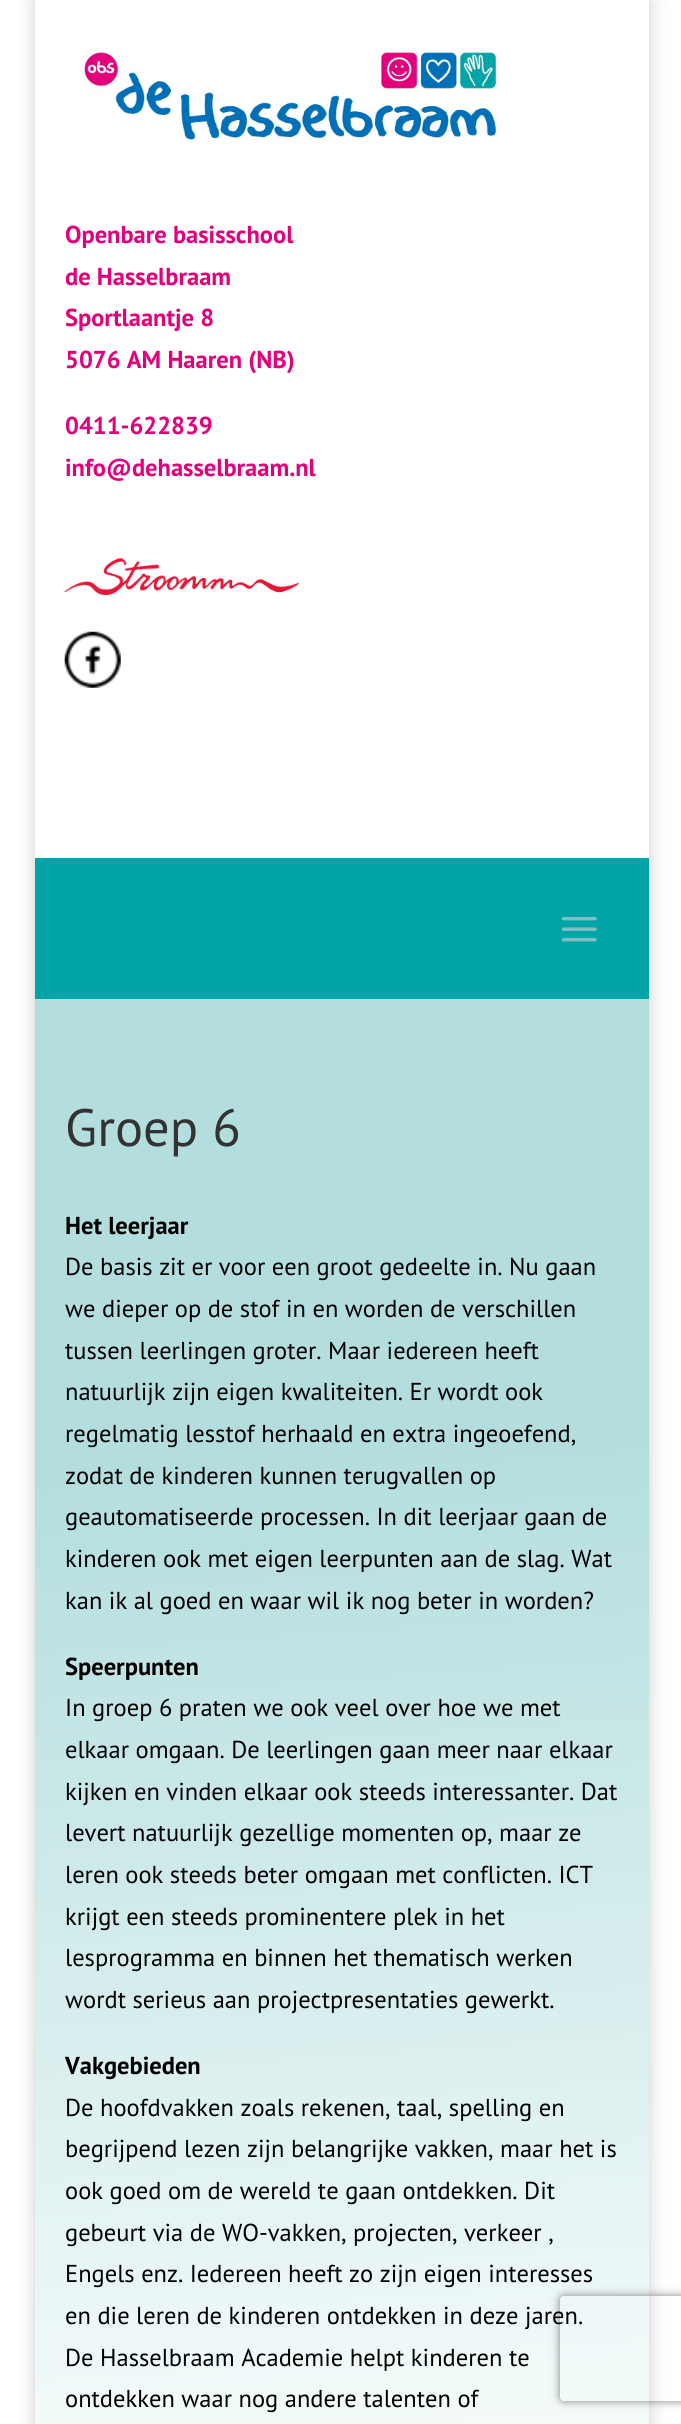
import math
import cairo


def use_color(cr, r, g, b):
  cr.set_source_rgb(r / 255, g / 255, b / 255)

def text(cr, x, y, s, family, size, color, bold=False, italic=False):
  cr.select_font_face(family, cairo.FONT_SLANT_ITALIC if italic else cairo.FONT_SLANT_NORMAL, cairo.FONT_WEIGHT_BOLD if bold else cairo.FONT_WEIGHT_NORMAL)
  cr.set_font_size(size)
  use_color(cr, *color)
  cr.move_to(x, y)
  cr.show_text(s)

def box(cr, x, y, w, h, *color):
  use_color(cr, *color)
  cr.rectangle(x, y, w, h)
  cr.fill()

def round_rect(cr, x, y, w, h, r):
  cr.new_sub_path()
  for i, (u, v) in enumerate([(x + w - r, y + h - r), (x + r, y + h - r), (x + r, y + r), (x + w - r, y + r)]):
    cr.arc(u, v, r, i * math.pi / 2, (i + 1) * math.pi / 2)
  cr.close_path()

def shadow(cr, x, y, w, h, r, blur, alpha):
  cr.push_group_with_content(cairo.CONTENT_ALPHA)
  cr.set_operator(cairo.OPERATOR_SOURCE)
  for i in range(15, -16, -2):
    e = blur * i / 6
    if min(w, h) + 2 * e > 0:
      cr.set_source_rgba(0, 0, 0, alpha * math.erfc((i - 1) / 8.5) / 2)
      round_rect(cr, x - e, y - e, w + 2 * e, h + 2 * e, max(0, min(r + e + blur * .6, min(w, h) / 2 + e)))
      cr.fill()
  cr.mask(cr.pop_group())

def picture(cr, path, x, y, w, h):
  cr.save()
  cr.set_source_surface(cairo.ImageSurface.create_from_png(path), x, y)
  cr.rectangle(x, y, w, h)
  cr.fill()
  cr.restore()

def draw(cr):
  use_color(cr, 255, 255, 255)
  cr.paint()
  cr.save()
  cr.set_fill_rule(cairo.FILL_RULE_EVEN_ODD)
  cr.new_path()
  cr.move_to(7, 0)
  cr.line_to(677, 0)
  cr.line_to(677, 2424)
  cr.line_to(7, 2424)
  cr.close_path()
  cr.move_to(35, 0)
  cr.line_to(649, 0)
  cr.line_to(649, 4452)
  cr.line_to(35, 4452)
  cr.close_path()
  cr.clip()
  use_color(cr, 0, 0, 0)
  shadow(cr, 35, 0, 614, 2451, 0, 9, 0.2)
  cr.restore()
  picture(cr, "img_01.png", 83, 51, 417, 91)
  picture(cr, "img_02.png", 64, 558, 236, 37)
  picture(cr, "img_03.png", 64, 631, 57, 57)
  box(cr, 35, 858, 614, 141, 1, 165, 167)
  picture(cr, "img_04.png", 561, 916, 36, 26)
  gradient = cairo.LinearGradient(230, 986, 454, 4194)
  gradient.add_color_stop_rgba(0.15, 0.706, 0.871, 0.871, 1)
  gradient.add_color_stop_rgba(0.5, 1, 1, 1, 1)
  cr.set_source(gradient)
  cr.rectangle(35, 999, 614, 1425)
  cr.fill()
  cr.save()
  cr.set_fill_rule(cairo.FILL_RULE_EVEN_ODD)
  cr.new_path()
  cr.move_to(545, 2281)
  cr.line_to(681, 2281)
  cr.line_to(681, 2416)
  cr.line_to(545, 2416)
  cr.close_path()
  cr.move_to(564, 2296)
  cr.line_to(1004, 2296)
  cr.curve_to(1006, 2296, 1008, 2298, 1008, 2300)
  cr.line_to(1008, 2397)
  cr.curve_to(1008, 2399, 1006, 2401, 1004, 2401)
  cr.line_to(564, 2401)
  cr.curve_to(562, 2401, 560, 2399, 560, 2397)
  cr.line_to(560, 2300)
  cr.curve_to(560, 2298, 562, 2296, 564, 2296)
  cr.close_path()
  cr.clip()
  use_color(cr, 128, 128, 128)
  shadow(cr, 560, 2296, 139, 105, 4, 4.5, 1)
  cr.restore()
  text(cr, 65, 243, "Openbare basisschool", "PT Sans", 24.5, (226, 1, 123), bold=True)
  text(cr, 65, 285, "de Hasselbraam", "PT Sans", 24.5, (226, 1, 123), bold=True)
  text(cr, 65, 326, "Sportlaantje 8", "PT Sans", 24.5, (226, 1, 123), bold=True)
  text(cr, 65, 368, "5076 AM Haaren (NB)", "PT Sans", 24.5, (226, 1, 123), bold=True)
  text(cr, 65, 434, "0411-622839", "PT Sans", 24.5, (226, 1, 123), bold=True)
  text(cr, 65, 476, "info@dehasselbraam.nl", "PT Sans", 24.5, (226, 1, 123), bold=True)
  text(cr, 65, 1146, "Groep 6", "PT Sans", 52.5, (51, 51, 51))
  text(cr, 65, 1234, "Het leerjaar", "PT Sans", 24.5, (0, 0, 0), bold=True)
  text(cr, 65, 1275, "De basis zit er voor een groot gedeelte in. Nu gaan", "PT Sans", 24.5, (0, 0, 0))
  text(cr, 65, 1317, "we dieper op de stof in en worden de verschillen", "PT Sans", 24.5, (0, 0, 0))
  text(cr, 65, 1359, "tussen leerlingen groter. Maar iedereen heeft", "PT Sans", 24.5, (0, 0, 0))
  text(cr, 65, 1400, "natuurlijk zijn eigen kwaliteiten. Er wordt ook", "PT Sans", 24.5, (0, 0, 0))
  text(cr, 65, 1442, "regelmatig lesstof herhaald en extra ingeoefend,", "PT Sans", 24.5, (0, 0, 0))
  text(cr, 65, 1484, "zodat de kinderen kunnen terugvallen op", "PT Sans", 24.5, (0, 0, 0))
  text(cr, 65, 1525, "geautomatiseerde processen. In dit leerjaar gaan de", "PT Sans", 24.5, (0, 0, 0))
  text(cr, 65, 1567, "kinderen ook met eigen leerpunten aan de slag. Wat", "PT Sans", 24.5, (0, 0, 0))
  text(cr, 65, 1609, "kan ik al goed en waar wil ik nog beter in worden?", "PT Sans", 24.5, (0, 0, 0))
  text(cr, 65, 1675, "Speerpunten", "PT Sans", 24.5, (0, 0, 0), bold=True)
  text(cr, 65, 1716, "In groep 6 praten we ook veel over hoe we met", "PT Sans", 24.5, (0, 0, 0))
  text(cr, 65, 1758, "elkaar omgaan. De leerlingen gaan meer naar elkaar", "PT Sans", 24.5, (0, 0, 0))
  text(cr, 65, 1800, "kijken en vinden elkaar ook steeds interessanter. Dat", "PT Sans", 24.5, (0, 0, 0))
  text(cr, 65, 1841, "levert natuurlijk gezellige momenten op, maar ze", "PT Sans", 24.5, (0, 0, 0))
  text(cr, 65, 1883, "leren ook steeds beter omgaan met conflicten. ICT", "PT Sans", 24.5, (0, 0, 0))
  text(cr, 65, 1925, "krijgt een steeds prominentere plek in het", "PT Sans", 24.5, (0, 0, 0))
  text(cr, 65, 1966, "lesprogramma en binnen het thematisch werken", "PT Sans", 24.5, (0, 0, 0))
  text(cr, 65, 2008, "wordt serieus aan projectpresentaties gewerkt.", "PT Sans", 24.5, (0, 0, 0))
  text(cr, 65, 2074, "Vakgebieden", "PT Sans", 24.5, (0, 0, 0), bold=True)
  text(cr, 65, 2116, "De hoofdvakken zoals rekenen, taal, spelling en", "PT Sans", 24.5, (0, 0, 0))
  text(cr, 65, 2157, "begrijpend lezen zijn belangrijke vakken, maar het is", "PT Sans", 24.5, (0, 0, 0))
  text(cr, 65, 2199, "ook goed om de wereld te gaan ontdekken. Dit", "PT Sans", 24.5, (0, 0, 0))
  text(cr, 65, 2241, "gebeurt via de WO-vakken, projecten, verkeer ,", "PT Sans", 24.5, (0, 0, 0))
  text(cr, 65, 2282, "Engels enz. Iedereen heeft zo zijn eigen interesses", "PT Sans", 24.5, (0, 0, 0))
  text(cr, 65, 2324, "en die leren de kinderen ontdekken in deze jaren.", "PT Sans", 24.5, (0, 0, 0))
  text(cr, 65, 2366, "De Hasselbraam Academie helpt kinderen te", "PT Sans", 24.5, (0, 0, 0))
  text(cr, 65, 2407, "ontdekken waar nog andere talenten of", "PT Sans", 24.5, (0, 0, 0))


surface = cairo.ImageSurface(cairo.FORMAT_RGB24, 681, 2424)
cr = cairo.Context(surface)
options = cairo.FontOptions()
options.set_hint_metrics(cairo.HINT_METRICS_OFF)
options.set_hint_style(cairo.HINT_STYLE_NONE)
cr.set_font_options(options)
cr.set_miter_limit(4)
draw(cr)
surface.write_to_png("out.png")
